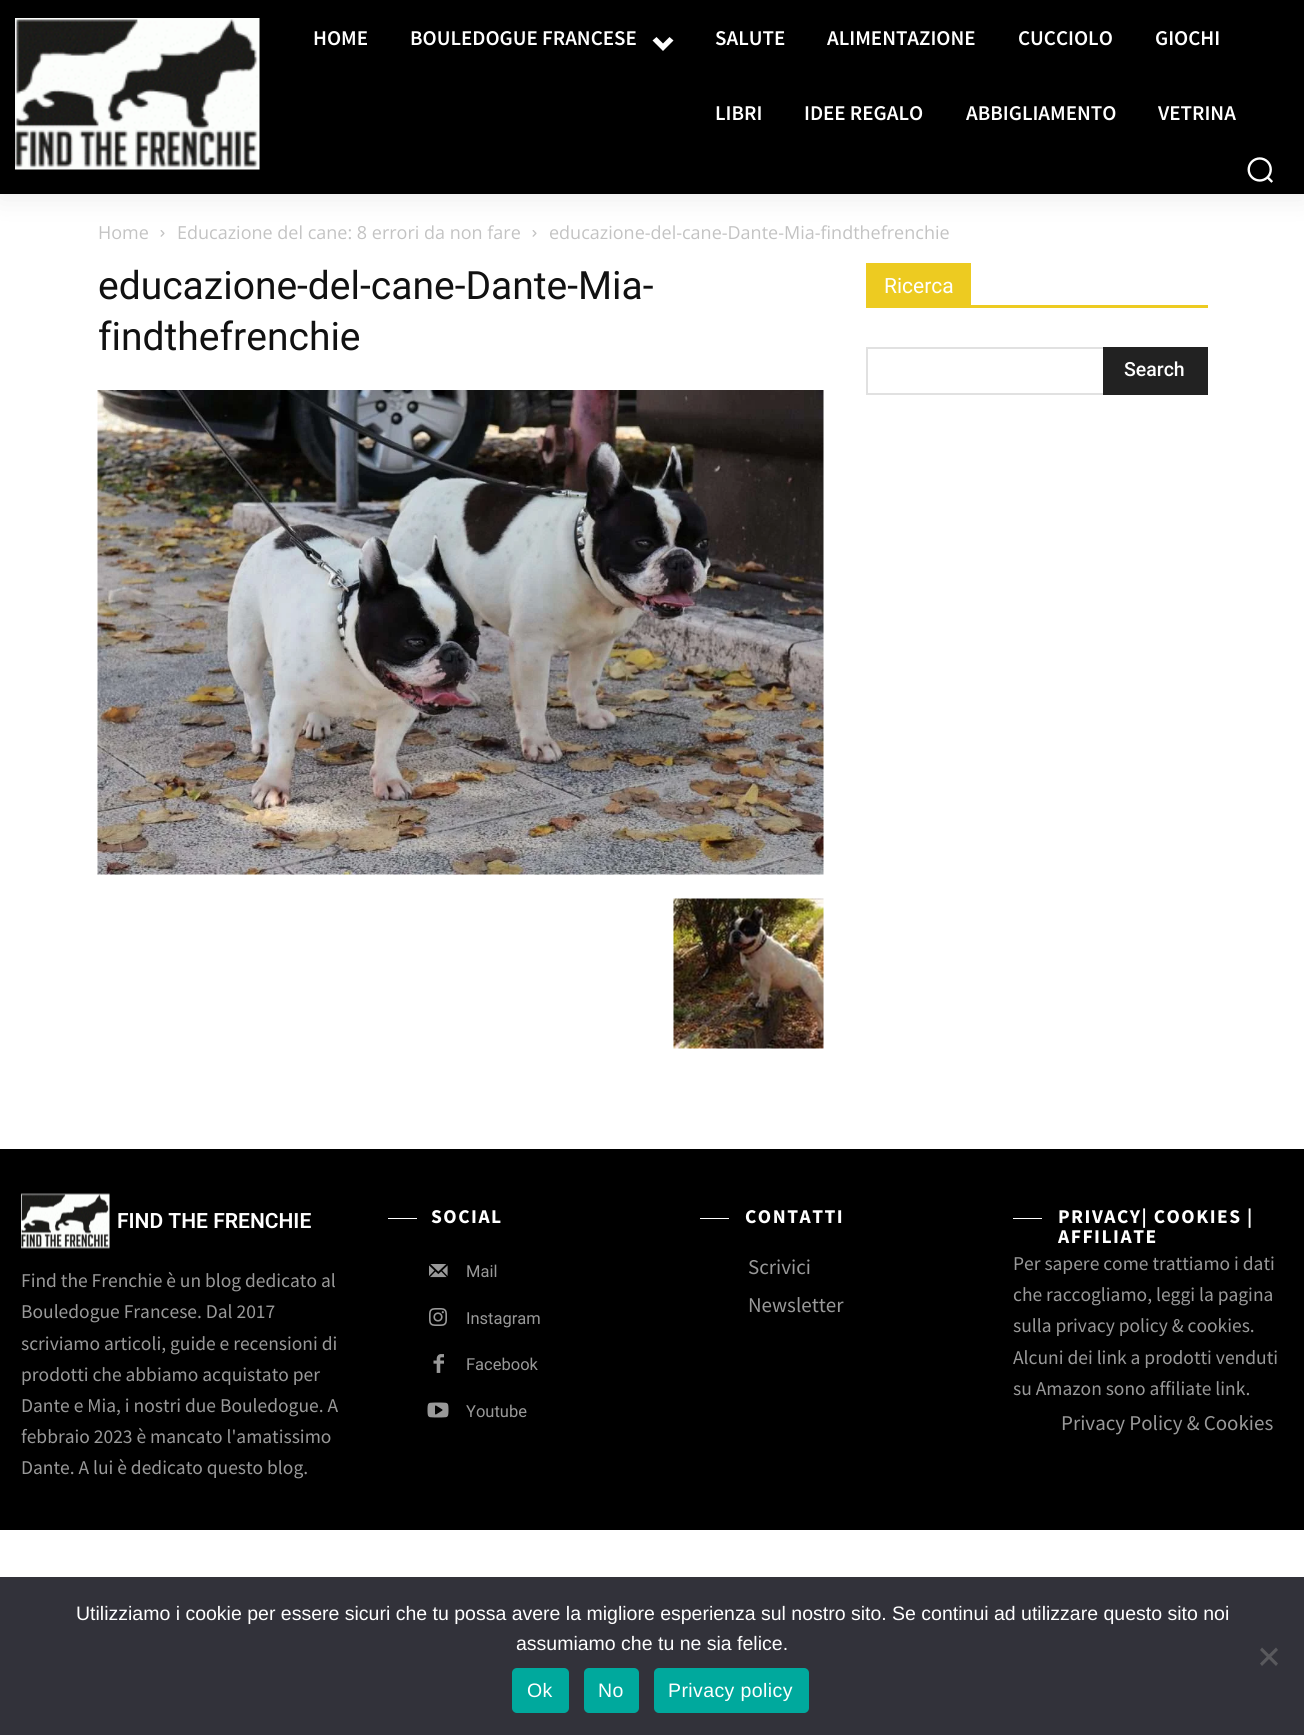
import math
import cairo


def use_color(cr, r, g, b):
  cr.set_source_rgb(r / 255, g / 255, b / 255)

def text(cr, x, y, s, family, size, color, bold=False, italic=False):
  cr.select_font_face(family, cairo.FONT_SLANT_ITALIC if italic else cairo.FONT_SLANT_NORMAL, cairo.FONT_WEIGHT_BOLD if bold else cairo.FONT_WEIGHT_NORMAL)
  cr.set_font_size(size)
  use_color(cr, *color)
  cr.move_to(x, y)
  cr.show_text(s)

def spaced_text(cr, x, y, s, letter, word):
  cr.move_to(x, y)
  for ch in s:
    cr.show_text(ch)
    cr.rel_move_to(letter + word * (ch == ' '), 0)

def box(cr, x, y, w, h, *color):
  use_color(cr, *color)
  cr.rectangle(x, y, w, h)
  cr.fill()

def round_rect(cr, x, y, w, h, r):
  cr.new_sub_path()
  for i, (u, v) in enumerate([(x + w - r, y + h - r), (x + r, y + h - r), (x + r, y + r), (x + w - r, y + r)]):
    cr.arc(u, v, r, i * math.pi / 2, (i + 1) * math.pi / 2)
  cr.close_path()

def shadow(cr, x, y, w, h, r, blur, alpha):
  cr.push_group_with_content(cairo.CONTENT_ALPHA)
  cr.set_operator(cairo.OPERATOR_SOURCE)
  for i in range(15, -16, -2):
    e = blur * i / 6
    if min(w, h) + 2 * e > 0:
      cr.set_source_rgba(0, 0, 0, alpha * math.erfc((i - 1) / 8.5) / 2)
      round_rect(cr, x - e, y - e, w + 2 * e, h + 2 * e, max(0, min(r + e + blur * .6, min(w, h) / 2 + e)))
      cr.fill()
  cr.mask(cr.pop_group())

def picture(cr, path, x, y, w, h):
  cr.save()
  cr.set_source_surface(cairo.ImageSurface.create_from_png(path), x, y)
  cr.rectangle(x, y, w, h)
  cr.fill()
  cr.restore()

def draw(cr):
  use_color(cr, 255, 255, 255)
  cr.paint()
  box(cr, 0, 0, 1304, 194, 0, 0, 0)
  picture(cr, "img_03.png", 160, 230, 5, 7)
  picture(cr, "img_03.png", 532, 230, 5, 7)
  cr.save()
  cr.set_fill_rule(cairo.FILL_RULE_EVEN_ODD)
  cr.new_path()
  cr.move_to(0, 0)
  cr.line_to(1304, 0)
  cr.line_to(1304, 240)
  cr.line_to(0, 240)
  cr.close_path()
  cr.move_to(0, 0)
  cr.line_to(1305, 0)
  cr.line_to(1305, 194)
  cr.line_to(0, 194)
  cr.close_path()
  cr.clip()
  use_color(cr, 0, 0, 0)
  shadow(cr, 0, 0, 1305, 194, 0, 15, 0.1)
  cr.restore()
  picture(cr, "img_01.png", 15, 18, 245, 152)
  use_color(cr, 255, 255, 255)
  cr.new_path()
  cr.move_to(656.5, 37)
  cr.line_to(663, 43.5)
  cr.line_to(669.5, 37)
  cr.line_to(673.5, 40.5)
  cr.line_to(663, 51)
  cr.line_to(652.5, 40.5)
  cr.close_path()
  cr.fill()
  picture(cr, "img_02.png", 1247, 157, 26, 26)
  picture(cr, "img_04.png", 97, 390, 727, 485)
  picture(cr, "img_05.png", 673, 898, 151, 151)
  box(cr, 866, 305, 342, 3, 237, 203, 33)
  box(cr, 866, 263, 105, 42, 237, 203, 33)
  box(cr, 866, 347, 237, 2, 225, 225, 225)
  box(cr, 866, 393, 237, 2, 225, 225, 225)
  box(cr, 866, 347, 2, 48, 225, 225, 225)
  box(cr, 1103, 347, 105, 48, 34, 34, 34)
  box(cr, 0, 1149, 1304, 381, 0, 0, 0)
  picture(cr, "img_06.png", 21, 1193, 89, 56)
  box(cr, 388, 1218, 29, 1, 255, 255, 255)
  picture(cr, "img_07.png", 429, 1264, 19, 14)
  picture(cr, "img_08.png", 429, 1308, 18, 18)
  picture(cr, "img_09.png", 433, 1354, 11, 19)
  picture(cr, "img_10.png", 427, 1402, 22, 16)
  box(cr, 700, 1218, 29, 1, 255, 255, 255)
  box(cr, 1013, 1218, 29, 1, 255, 255, 255)
  box(cr, 0, 1577, 1304, 158, 50, 50, 58)
  use_color(cr, 89, 89, 93)
  cr.new_path()
  cr.move_to(1276, 1647.5)
  cr.line_to(1278, 1650)
  cr.line_to(1262, 1666)
  cr.line_to(1260, 1663.5)
  cr.close_path()
  cr.fill()
  cr.new_path()
  cr.move_to(1260, 1650)
  cr.line_to(1262, 1647.5)
  cr.line_to(1278, 1663.5)
  cr.line_to(1276, 1666)
  cr.close_path()
  cr.fill()
  use_color(cr, 0, 169, 157)
  round_rect(cr, 512, 1668, 57, 45, 5)
  cr.fill()
  round_rect(cr, 584, 1668, 55, 45, 5)
  cr.fill()
  round_rect(cr, 654, 1668, 155, 45, 5)
  cr.fill()
  text(cr, 313, 45, "HOME", "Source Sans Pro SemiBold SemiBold", 21, (255, 255, 255))
  text(cr, 410, 45, "BOULEDOGUE FRANCESE", "Source Sans Pro SemiBold SemiBold", 21, (255, 255, 255))
  text(cr, 715, 45, "SALUTE", "Source Sans Pro SemiBold SemiBold", 21, (255, 255, 255))
  text(cr, 827, 45, "ALIMENTAZIONE", "Source Sans Pro SemiBold SemiBold", 21, (255, 255, 255))
  text(cr, 1018, 45, "CUCCIOLO", "Source Sans Pro SemiBold SemiBold", 21, (255, 255, 255))
  text(cr, 1155, 45, "GIOCHI", "Source Sans Pro SemiBold SemiBold", 21, (255, 255, 255))
  text(cr, 715, 120, "LIBRI", "Source Sans Pro SemiBold SemiBold", 21, (255, 255, 255))
  text(cr, 804, 120, "IDEE REGALO", "Source Sans Pro SemiBold SemiBold", 21, (255, 255, 255))
  text(cr, 966, 120, "ABBIGLIAMENTO", "Source Sans Pro SemiBold SemiBold", 21, (255, 255, 255))
  text(cr, 1158, 120, "VETRINA", "Source Sans Pro SemiBold SemiBold", 21, (255, 255, 255))
  text(cr, 98, 239, "Home", "Open Sans", 18, (195, 195, 195))
  text(cr, 177, 239, "Educazione del cane: 8 errori da non fare", "Open Sans", 18, (195, 195, 195))
  text(cr, 549, 239, "educazione-del-cane-Dante-Mia-findthefrenchie", "Open Sans", 18, (195, 195, 195))
  text(cr, 98, 299, "educazione-del-cane-Dante-Mia-", "Roboto", 39, (17, 17, 17))
  text(cr, 98, 350, "findthefrenchie", "Roboto", 39, (17, 17, 17))
  text(cr, 884, 293, "Ricerca", "Roboto", 21, (255, 255, 255))
  text(cr, 1124, 376, "Search", "Roboto Medium", 19.5, (255, 255, 255))
  text(cr, 117, 1228, "FIND THE FRENCHIE", "Roboto SemiBold", 21, (255, 255, 255))
  text(cr, 21, 1287, "Find the Frenchie è un blog dedicato al", "Source Sans Pro", 19.5, (153, 153, 153))
  text(cr, 21, 1318, "Bouledogue Francese. Dal 2017", "Source Sans Pro", 19.5, (153, 153, 153))
  text(cr, 21, 1350, "scriviamo articoli, guide e recensioni di", "Source Sans Pro", 19.5, (153, 153, 153))
  text(cr, 21, 1381, "prodotti che abbiamo acquistato per", "Source Sans Pro", 19.5, (153, 153, 153))
  text(cr, 21, 1412, "Dante e Mia, i nostri due Bouledogue. A", "Source Sans Pro", 19.5, (153, 153, 153))
  text(cr, 21, 1443, "febbraio 2023 è mancato l'amatissimo", "Source Sans Pro", 19.5, (153, 153, 153))
  text(cr, 21, 1474, "Dante. A lui è dedicato questo blog.", "Source Sans Pro", 19.5, (153, 153, 153))
  cr.select_font_face("Source Sans Pro", cairo.FONT_SLANT_NORMAL, cairo.FONT_WEIGHT_BOLD)
  use_color(cr, 255, 255, 255)
  spaced_text(cr, 431, 1223, "SOCIAL", 1.5, 0)
  text(cr, 466, 1277, "Mail", "Roboto", 16.5, (153, 153, 153))
  text(cr, 466, 1324, "Instagram", "Roboto", 16.5, (153, 153, 153))
  text(cr, 466, 1370, "Facebook", "Roboto", 16.5, (153, 153, 153))
  text(cr, 466, 1417, "Youtube", "Roboto", 16.5, (153, 153, 153))
  cr.select_font_face("Source Sans Pro", cairo.FONT_SLANT_NORMAL, cairo.FONT_WEIGHT_BOLD)
  cr.set_font_size(19.5)
  use_color(cr, 255, 255, 255)
  spaced_text(cr, 745, 1223, "CONTATTI", 1.5, 0)
  text(cr, 748, 1274, "Scrivici", "Source Sans Pro", 21, (153, 153, 153))
  text(cr, 748, 1312, "Newsletter", "Source Sans Pro", 21, (153, 153, 153))
  cr.select_font_face("Source Sans Pro", cairo.FONT_SLANT_NORMAL, cairo.FONT_WEIGHT_BOLD)
  cr.set_font_size(19.5)
  use_color(cr, 255, 255, 255)
  spaced_text(cr, 1058, 1223, "PRIVACY| COOKIES |", 1.5, 0)
  spaced_text(cr, 1058, 1243, "AFFILIATE", 1.5, 0)
  text(cr, 1013, 1270, "Per sapere come trattiamo i dati", "Source Sans Pro", 19.5, (153, 153, 153))
  text(cr, 1013, 1301, "che raccogliamo, leggi la pagina", "Source Sans Pro", 19.5, (153, 153, 153))
  text(cr, 1013, 1332, "sulla privacy policy & cookies.", "Source Sans Pro", 19.5, (153, 153, 153))
  text(cr, 1013, 1364, "Alcuni dei link a prodotti venduti", "Source Sans Pro", 19.5, (153, 153, 153))
  text(cr, 1013, 1395, "su Amazon sono affiliate link.", "Source Sans Pro", 19.5, (153, 153, 153))
  text(cr, 1061, 1430, "Privacy Policy & Cookies", "Source Sans Pro", 21, (153, 153, 153))
  text(cr, 76, 1620, "Utilizziamo i cookie per essere sicuri che tu possa avere la migliore esperienza sul nostro sito. Se continui ad utilizzare questo sito noi", "Liberation Sans", 19.5, (255, 255, 255))
  text(cr, 516, 1650, "assumiamo che tu ne sia felice.", "Liberation Sans", 19.5, (255, 255, 255))
  spaced_text(cr, 527, 1697, "Ok", 0.4, 0)
  spaced_text(cr, 598, 1697, "No", 0.4, 0)
  spaced_text(cr, 668, 1697, "Privacy policy", 0.4, 0)


surface = cairo.ImageSurface(cairo.FORMAT_RGB24, 1304, 1735)
cr = cairo.Context(surface)
options = cairo.FontOptions()
options.set_hint_metrics(cairo.HINT_METRICS_OFF)
options.set_hint_style(cairo.HINT_STYLE_NONE)
cr.set_font_options(options)
cr.set_miter_limit(4)
draw(cr)
surface.write_to_png("out.png")
